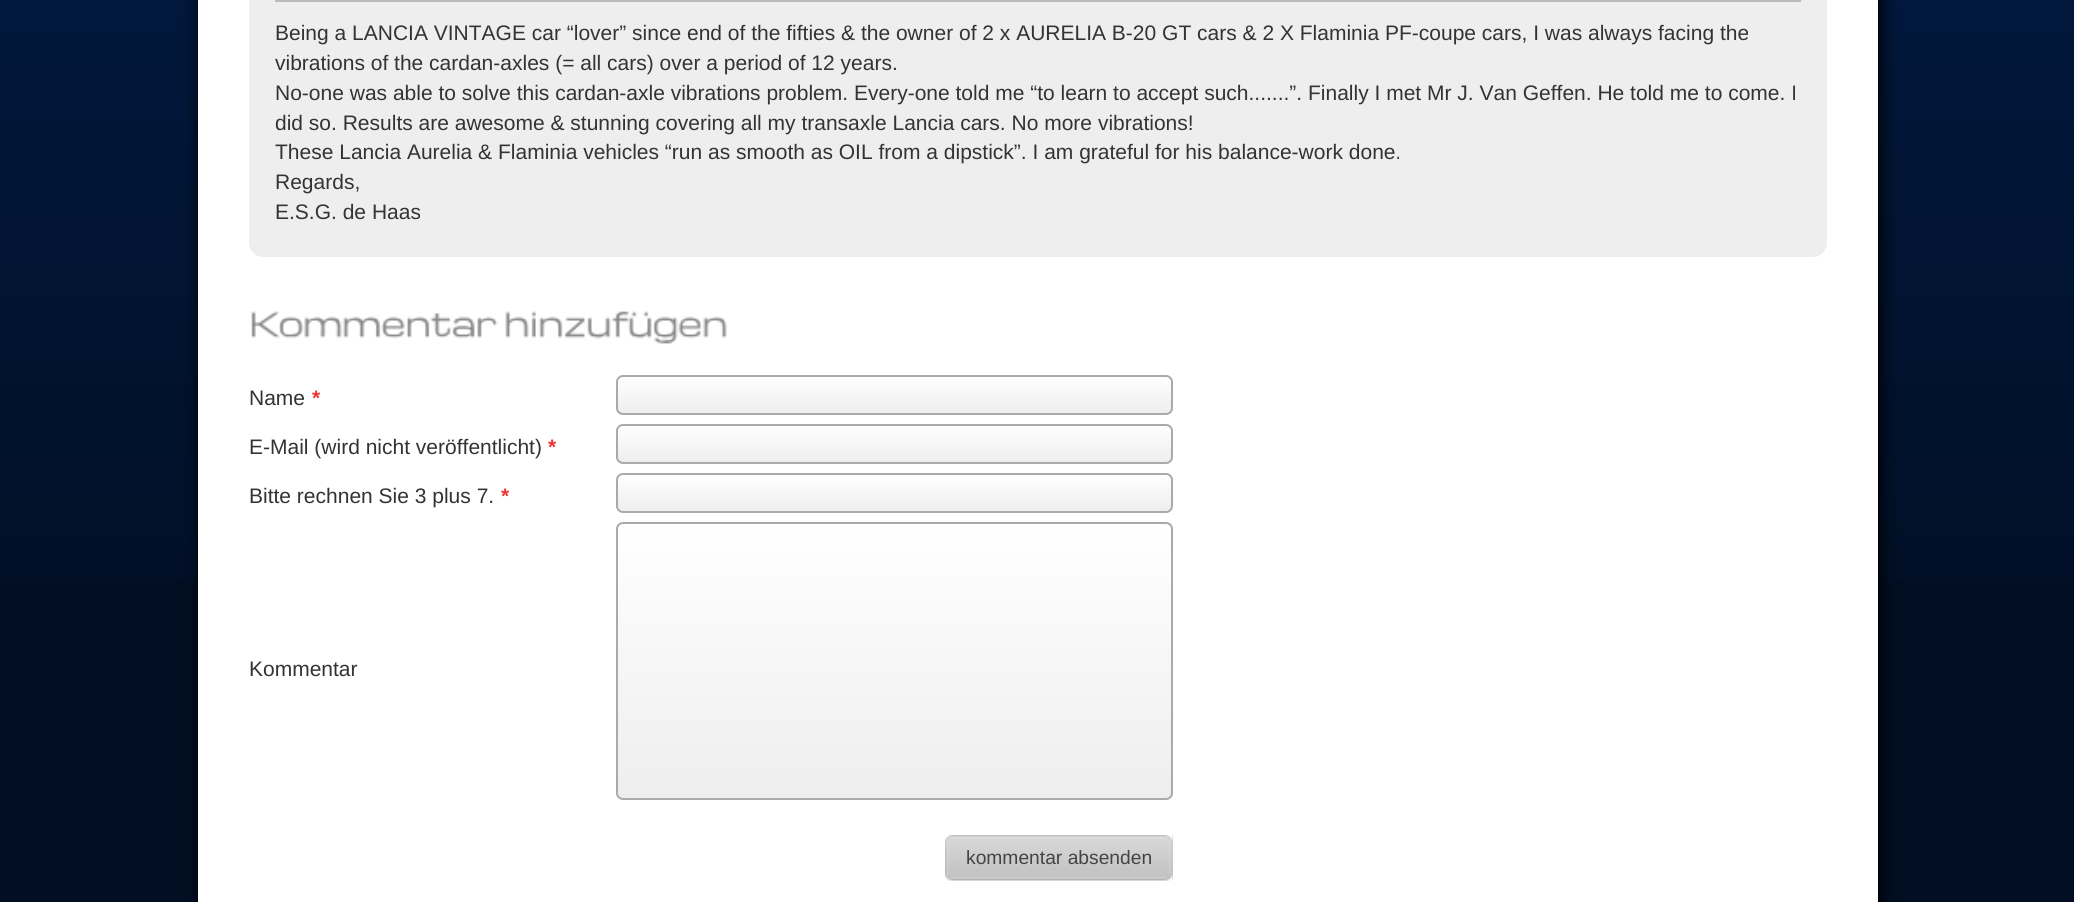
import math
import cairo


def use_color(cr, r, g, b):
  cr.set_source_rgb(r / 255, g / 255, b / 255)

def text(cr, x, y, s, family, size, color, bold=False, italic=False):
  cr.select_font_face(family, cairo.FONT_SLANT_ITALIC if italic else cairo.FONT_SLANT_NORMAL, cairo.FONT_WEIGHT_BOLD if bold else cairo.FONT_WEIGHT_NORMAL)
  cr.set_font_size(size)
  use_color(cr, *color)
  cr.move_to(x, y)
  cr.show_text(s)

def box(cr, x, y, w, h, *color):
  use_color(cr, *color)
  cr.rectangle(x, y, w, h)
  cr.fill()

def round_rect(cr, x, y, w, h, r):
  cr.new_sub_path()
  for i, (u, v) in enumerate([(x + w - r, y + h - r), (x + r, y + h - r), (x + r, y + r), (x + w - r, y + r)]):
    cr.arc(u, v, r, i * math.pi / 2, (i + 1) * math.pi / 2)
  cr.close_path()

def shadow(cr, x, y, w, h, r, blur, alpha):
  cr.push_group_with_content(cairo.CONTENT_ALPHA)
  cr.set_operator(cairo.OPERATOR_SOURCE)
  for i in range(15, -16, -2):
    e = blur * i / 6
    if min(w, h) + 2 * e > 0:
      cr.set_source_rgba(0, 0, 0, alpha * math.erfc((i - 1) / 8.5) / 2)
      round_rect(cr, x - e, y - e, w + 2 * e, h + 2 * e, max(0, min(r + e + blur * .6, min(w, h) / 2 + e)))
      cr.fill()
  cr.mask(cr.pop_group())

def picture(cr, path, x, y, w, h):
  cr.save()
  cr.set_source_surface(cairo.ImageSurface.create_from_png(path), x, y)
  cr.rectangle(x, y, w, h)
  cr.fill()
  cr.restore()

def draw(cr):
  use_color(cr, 1, 14, 35)
  cr.paint()
  picture(cr, "img_01.png", 0, 0, 2074, 579)
  use_color(cr, 0, 0, 0)
  shadow(cr, 201, -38, 1680, 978, 11, 9, 1)
  box(cr, 198, 0, 1680, 902, 255, 255, 255)
  use_color(cr, 238, 238, 238)
  round_rect(cr, 249, -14, 1578, 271, 14)
  cr.fill()
  box(cr, 275, 0, 1526, 2, 187, 187, 187)
  picture(cr, "img_02.png", 251, 311, 247, 28)
  picture(cr, "img_03.png", 505, 311, 222, 33)
  cr.save()
  round_rect(cr, 616, 375, 557, 40, 7)
  cr.clip()
  gradient = cairo.LinearGradient(618, 376, 618, 413)
  gradient.add_color_stop_rgba(0, 1, 1, 1, 1)
  gradient.add_color_stop_rgba(1, 0.933, 0.933, 0.933, 1)
  cr.set_source(gradient)
  cr.rectangle(616, 376, 557, 37)
  cr.fill()
  cr.restore()
  round_rect(cr, 617, 376, 555, 38, 6)
  use_color(cr, 170, 170, 170)
  cr.stroke()
  cr.save()
  round_rect(cr, 616, 424, 557, 40, 7)
  cr.clip()
  gradient = cairo.LinearGradient(618, 425, 618, 462)
  gradient.add_color_stop_rgba(0, 1, 1, 1, 1)
  gradient.add_color_stop_rgba(1, 0.933, 0.933, 0.933, 1)
  cr.set_source(gradient)
  cr.rectangle(616, 425, 557, 37)
  cr.fill()
  cr.restore()
  round_rect(cr, 617, 425, 555, 38, 6)
  cr.stroke()
  cr.save()
  round_rect(cr, 616, 473, 557, 40, 7)
  cr.clip()
  gradient = cairo.LinearGradient(618, 474, 618, 511)
  gradient.add_color_stop_rgba(0, 1, 1, 1, 1)
  gradient.add_color_stop_rgba(1, 0.933, 0.933, 0.933, 1)
  cr.set_source(gradient)
  cr.rectangle(616, 474, 557, 37)
  cr.fill()
  cr.restore()
  round_rect(cr, 617, 474, 555, 38, 6)
  cr.stroke()
  cr.save()
  round_rect(cr, 616, 522, 557, 278, 7)
  cr.clip()
  gradient = cairo.LinearGradient(618, 523, 618, 798)
  gradient.add_color_stop_rgba(0, 1, 1, 1, 1)
  gradient.add_color_stop_rgba(1, 0.933, 0.933, 0.933, 1)
  cr.set_source(gradient)
  cr.rectangle(616, 523, 557, 275)
  cr.fill()
  cr.restore()
  round_rect(cr, 617, 523, 555, 276, 6)
  cr.stroke()
  box(cr, 1172, 835, 1, 45, 204, 204, 204)
  picture(cr, "img_04.png", 945, 835, 228, 46)
  text(cr, 275, 40, "Being a LANCIA VINTAGE car “lover” since end of the fifties & the owner of 2 x AURELIA B-20 GT cars & 2 X Flaminia PF-coupe cars, I was always facing the", "Liberation Sans", 21, (51, 51, 51))
  text(cr, 275, 70, "vibrations of the cardan-axles (= all cars) over a period of 12 years.", "Liberation Sans", 21, (51, 51, 51))
  text(cr, 275, 100, "No-one was able to solve this cardan-axle vibrations problem. Every-one told me “to learn to accept such.......”. Finally I met Mr J. Van Geffen. He told me to come. I", "Liberation Sans", 21, (51, 51, 51))
  text(cr, 275, 130, "did so. Results are awesome & stunning covering all my transaxle Lancia cars. No more vibrations!", "Liberation Sans", 21, (51, 51, 51))
  text(cr, 275, 159, "These Lancia Aurelia & Flaminia vehicles “run as smooth as OIL from a dipstick”. I am grateful for his balance-work done.", "Liberation Sans", 21, (51, 51, 51))
  text(cr, 275, 189, "Regards,", "Liberation Sans", 21, (51, 51, 51))
  text(cr, 275, 219, "E.S.G. de Haas", "Liberation Sans", 21, (51, 51, 51))
  text(cr, 249, 405, "Name", "Liberation Sans", 21, (51, 51, 51))
  text(cr, 312, 405, "*", "Liberation Sans", 21, (238, 51, 51), bold=True)
  text(cr, 249, 454, "E-Mail (wird nicht veröffentlicht)", "Liberation Sans", 21, (51, 51, 51))
  text(cr, 548, 454, "*", "Liberation Sans", 21, (238, 51, 51), bold=True)
  text(cr, 249, 503, "Bitte rechnen Sie 3 plus 7.", "Liberation Sans", 21, (51, 51, 51))
  text(cr, 501, 503, "*", "Liberation Sans", 21, (238, 51, 51), bold=True)
  text(cr, 249, 676, "Kommentar", "Liberation Sans", 21, (51, 51, 51))
  text(cr, 966, 864, "kommentar absenden", "Liberation Sans", 19.25, (68, 68, 68))


surface = cairo.ImageSurface(cairo.FORMAT_RGB24, 2074, 902)
cr = cairo.Context(surface)
options = cairo.FontOptions()
options.set_hint_metrics(cairo.HINT_METRICS_OFF)
options.set_hint_style(cairo.HINT_STYLE_NONE)
cr.set_font_options(options)
cr.set_miter_limit(4)
draw(cr)
surface.write_to_png("out.png")
